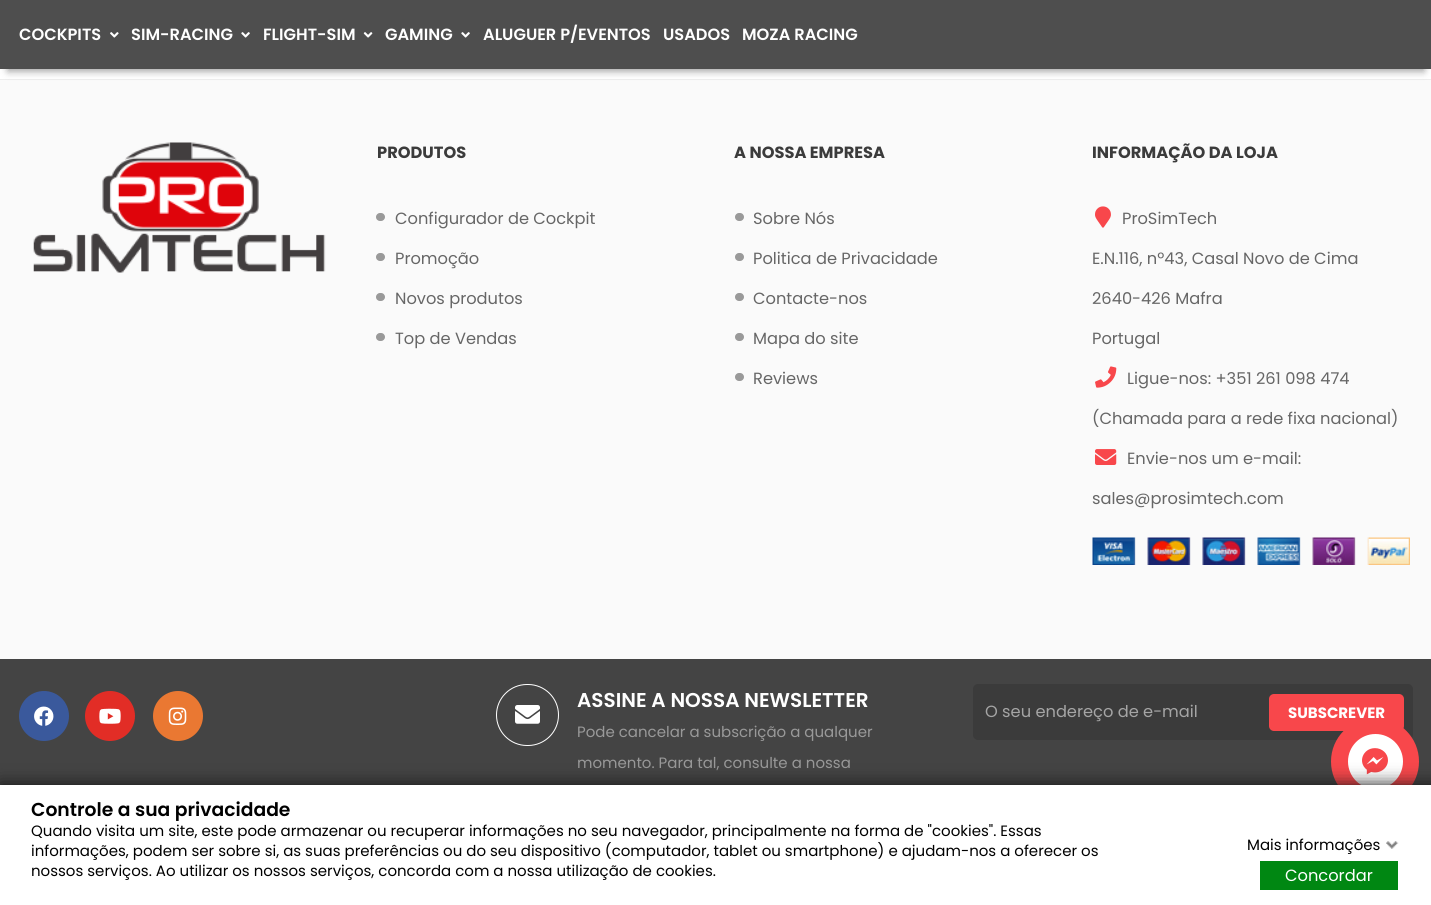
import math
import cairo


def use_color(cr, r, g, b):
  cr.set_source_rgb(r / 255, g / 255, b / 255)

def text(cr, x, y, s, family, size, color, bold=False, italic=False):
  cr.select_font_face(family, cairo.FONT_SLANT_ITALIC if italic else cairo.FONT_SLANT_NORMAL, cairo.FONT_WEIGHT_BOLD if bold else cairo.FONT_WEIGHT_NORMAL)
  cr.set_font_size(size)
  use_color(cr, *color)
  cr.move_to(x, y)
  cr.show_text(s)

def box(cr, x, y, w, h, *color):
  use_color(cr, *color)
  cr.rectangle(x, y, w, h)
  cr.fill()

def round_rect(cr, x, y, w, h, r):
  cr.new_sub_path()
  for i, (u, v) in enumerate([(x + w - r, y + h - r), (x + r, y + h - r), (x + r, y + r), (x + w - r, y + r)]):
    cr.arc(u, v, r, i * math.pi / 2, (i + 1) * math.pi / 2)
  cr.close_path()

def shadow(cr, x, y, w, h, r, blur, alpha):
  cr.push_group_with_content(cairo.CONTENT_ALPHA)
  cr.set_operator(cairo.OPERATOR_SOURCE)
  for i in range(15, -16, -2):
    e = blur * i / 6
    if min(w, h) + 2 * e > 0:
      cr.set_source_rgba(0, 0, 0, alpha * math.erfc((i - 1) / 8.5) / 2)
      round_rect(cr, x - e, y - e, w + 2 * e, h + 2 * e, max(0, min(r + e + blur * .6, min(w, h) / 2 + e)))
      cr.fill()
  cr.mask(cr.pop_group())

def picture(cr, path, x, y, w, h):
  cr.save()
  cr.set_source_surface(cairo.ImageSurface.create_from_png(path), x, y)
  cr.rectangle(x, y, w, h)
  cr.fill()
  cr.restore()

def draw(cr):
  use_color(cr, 255, 255, 255)
  cr.paint()
  box(cr, 0, 80, 1431, 579, 250, 250, 250)
  box(cr, 0, 79, 1431, 1, 237, 237, 237)
  cr.save()
  cr.set_fill_rule(cairo.FILL_RULE_EVEN_ODD)
  cr.new_path()
  cr.move_to(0, 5)
  cr.line_to(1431, 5)
  cr.line_to(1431, 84)
  cr.line_to(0, 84)
  cr.close_path()
  cr.move_to(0, 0)
  cr.line_to(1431, 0)
  cr.line_to(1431, 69)
  cr.line_to(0, 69)
  cr.close_path()
  cr.clip()
  use_color(cr, 0, 0, 0)
  shadow(cr, 8, 18, 1416, 53, 0, 4, 0.4)
  cr.restore()
  cr.set_source_rgba(0.133, 0.133, 0.133, 0.8)
  cr.rectangle(0, 0, 1431, 69)
  cr.fill()
  picture(cr, "img_01.png", 110, 32, 9, 6)
  picture(cr, "img_02.png", 241, 32, 9, 6)
  picture(cr, "img_03.png", 363, 32, 10, 6)
  picture(cr, "img_02.png", 461, 32, 9, 6)
  picture(cr, "img_04.png", 33, 142, 293, 131)
  use_color(cr, 153, 153, 153)
  round_rect(cr, 376, 213, 9, 8, 4)
  cr.fill()
  round_rect(cr, 376, 253, 9, 8, 4)
  cr.fill()
  round_rect(cr, 376, 293, 9, 8, 4)
  cr.fill()
  round_rect(cr, 376, 333, 9, 8, 4)
  cr.fill()
  round_rect(cr, 735, 213, 9, 8, 4)
  cr.fill()
  round_rect(cr, 735, 253, 9, 8, 4)
  cr.fill()
  round_rect(cr, 735, 293, 9, 8, 4)
  cr.fill()
  round_rect(cr, 735, 333, 9, 8, 4)
  cr.fill()
  round_rect(cr, 735, 373, 9, 8, 4)
  cr.fill()
  picture(cr, "img_05.png", 1095, 206, 16, 22)
  picture(cr, "img_06.png", 1095, 366, 22, 22)
  picture(cr, "img_07.png", 1095, 449, 22, 16)
  picture(cr, "img_08.png", 1092, 537, 318, 28)
  box(cr, 0, 659, 1431, 126, 68, 68, 68)
  use_color(cr, 58, 89, 156)
  cr.arc(44, 716, 25, 0, 2 * math.pi)
  cr.fill()
  picture(cr, "img_10.png", 34, 706, 20, 20)
  use_color(cr, 226, 45, 38)
  cr.arc(110, 716, 25, 0, 2 * math.pi)
  cr.fill()
  picture(cr, "img_11.png", 99, 708, 22, 16)
  use_color(cr, 234, 120, 50)
  cr.arc(178, 716, 25, 0, 2 * math.pi)
  cr.fill()
  picture(cr, "img_12.png", 168, 707, 19, 18)
  round_rect(cr, 496.5, 684.5, 62, 61, 30.5)
  use_color(cr, 255, 255, 255)
  cr.set_line_width(1)
  cr.stroke()
  picture(cr, "img_13.png", 515, 705, 25, 19)
  use_color(cr, 59, 59, 59)
  round_rect(cr, 973, 684, 440, 56, 5)
  cr.fill()
  use_color(cr, 248, 71, 75)
  round_rect(cr, 1269, 694, 135, 37, 5)
  cr.fill()
  text(cr, 19, 40, "COCKPITS", "Poppins SemiBold", 16.25, (255, 255, 255))
  text(cr, 131, 40, "SIM-RACING", "Poppins SemiBold", 16.25, (255, 255, 255))
  text(cr, 263, 40, "FLIGHT-SIM", "Poppins SemiBold", 16.25, (255, 255, 255))
  text(cr, 385, 40, "GAMING", "Poppins SemiBold", 16.25, (255, 255, 255))
  text(cr, 483, 40, "ALUGUER P/EVENTOS", "Poppins SemiBold", 16.25, (255, 255, 255))
  text(cr, 663, 40, "USADOS", "Poppins SemiBold", 16.25, (255, 255, 255))
  text(cr, 742, 40, "MOZA RACING", "Poppins SemiBold", 16.25, (255, 255, 255))
  text(cr, 377, 158, "PRODUTOS", "Poppins", 16.25, (59, 59, 59), bold=True)
  text(cr, 395, 224, "Configurador de Cockpit", "Poppins", 16.25, (102, 102, 102))
  text(cr, 395, 264, "Promoção", "Poppins", 16.25, (102, 102, 102))
  text(cr, 395, 304, "Novos produtos", "Poppins", 16.25, (102, 102, 102))
  text(cr, 395, 344, "Top de Vendas", "Poppins", 16.25, (102, 102, 102))
  text(cr, 734, 158, "A NOSSA EMPRESA", "Poppins", 16.25, (59, 59, 59), bold=True)
  text(cr, 753, 224, "Sobre Nós", "Poppins", 16.25, (102, 102, 102))
  text(cr, 753, 264, "Politica de Privacidade", "Poppins", 16.25, (102, 102, 102))
  text(cr, 753, 304, "Contacte-nos", "Poppins", 16.25, (102, 102, 102))
  text(cr, 753, 344, "Mapa do site", "Poppins", 16.25, (102, 102, 102))
  text(cr, 753, 384, "Reviews", "Poppins", 16.25, (102, 102, 102))
  text(cr, 1092, 158, "INFORMAÇÃO DA LOJA", "Poppins", 16.25, (59, 59, 59), bold=True)
  text(cr, 1122, 224, "ProSimTech", "Poppins", 16.25, (102, 102, 102))
  text(cr, 1092, 264, "E.N.116, nº43, Casal Novo de Cima", "Poppins", 16.25, (102, 102, 102))
  text(cr, 1092, 304, "2640-426 Mafra", "Poppins", 16.25, (102, 102, 102))
  text(cr, 1092, 344, "Portugal", "Poppins", 16.25, (102, 102, 102))
  text(cr, 1127, 384, "Ligue-nos: +351 261 098 474", "Poppins", 16.25, (102, 102, 102))
  text(cr, 1092, 424, "(Chamada para a rede fixa nacional)", "Poppins", 16.25, (102, 102, 102))
  text(cr, 1127, 464, "Envie-nos um e-mail:", "Poppins", 16.25, (102, 102, 102))
  text(cr, 1092, 504, "sales@prosimtech.com", "Poppins", 16.25, (102, 102, 102))
  text(cr, 577, 707, "ASSINE A NOSSA NEWSLETTER", "Poppins SemiBold", 20, (255, 255, 255))
  text(cr, 577, 737, "Pode cancelar a subscrição a qualquer", "Poppins", 15, (153, 153, 153))
  text(cr, 577, 768, "momento. Para tal, consulte a nossa", "Poppins", 15, (153, 153, 153))
  text(cr, 985, 717, "O seu endereço de e-mail", "Poppins", 16.25, (165, 165, 165))
  text(cr, 1288, 718, "SUBSCREVER", "Poppins", 15, (255, 255, 255), bold=True)
  use_color(cr, 248, 71, 75)
  round_rect(cr, 1331, 718, 88, 87, 43.5)
  cr.fill()
  use_color(cr, 255, 255, 255)
  cr.arc(1375.5, 761.5, 27.5, 0, 2 * math.pi)
  cr.fill()
  picture(cr, "img_09.png", 1362, 748, 26, 27)
  use_color(cr, 18, 18, 18)
  shadow(cr, 0, 785, 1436, 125, 0, 9, 1)
  box(cr, 0, 785, 1431, 120, 255, 255, 255)
  text(cr, 31, 816, "Controle a sua privacidade", "Poppins SemiBold", 18.75, (0, 0, 0))
  text(cr, 31, 836, "Quando visita um site, este pode armazenar ou recuperar informações no seu navegador, principalmente na forma de \"cookies\". Essas", "Poppins", 15, (0, 0, 0))
  text(cr, 31, 856, "informações, podem ser sobre si, as suas preferências ou do seu dispositivo (computador, tablet ou smartphone) e ajudam-nos a oferecer os", "Poppins", 15, (0, 0, 0))
  text(cr, 31, 876, "nossos serviços. Ao utilizar os nossos serviços, concorda com a nossa utilização de cookies.", "Poppins", 15, (0, 0, 0))
  text(cr, 1247, 850, "Mais informações", "Poppins", 15, (0, 0, 0))
  picture(cr, "img_14.png", 1386, 841, 13, 8)
  box(cr, 1260, 861, 138, 29, 0, 135, 18)
  text(cr, 1285, 881, "Concordar", "Poppins", 16.25, (255, 255, 255))


surface = cairo.ImageSurface(cairo.FORMAT_RGB24, 1431, 905)
cr = cairo.Context(surface)
options = cairo.FontOptions()
options.set_hint_metrics(cairo.HINT_METRICS_OFF)
options.set_hint_style(cairo.HINT_STYLE_NONE)
cr.set_font_options(options)
cr.set_miter_limit(4)
draw(cr)
surface.write_to_png("out.png")
